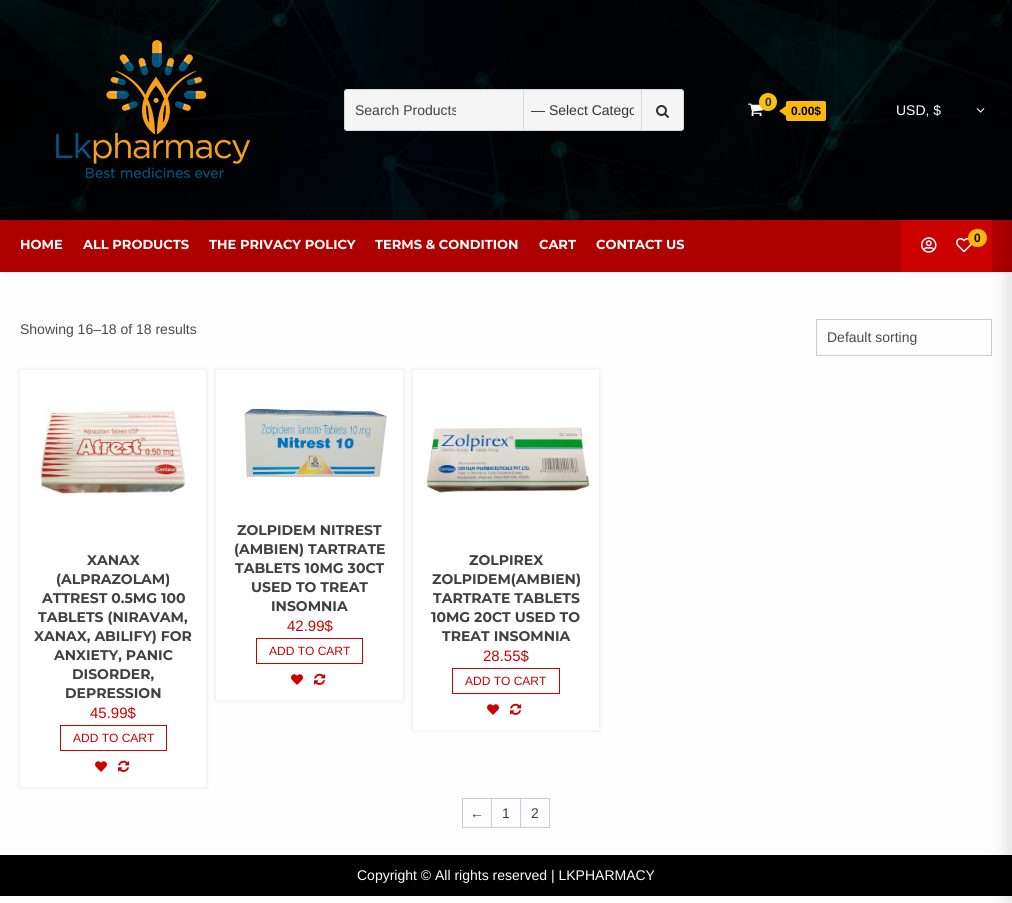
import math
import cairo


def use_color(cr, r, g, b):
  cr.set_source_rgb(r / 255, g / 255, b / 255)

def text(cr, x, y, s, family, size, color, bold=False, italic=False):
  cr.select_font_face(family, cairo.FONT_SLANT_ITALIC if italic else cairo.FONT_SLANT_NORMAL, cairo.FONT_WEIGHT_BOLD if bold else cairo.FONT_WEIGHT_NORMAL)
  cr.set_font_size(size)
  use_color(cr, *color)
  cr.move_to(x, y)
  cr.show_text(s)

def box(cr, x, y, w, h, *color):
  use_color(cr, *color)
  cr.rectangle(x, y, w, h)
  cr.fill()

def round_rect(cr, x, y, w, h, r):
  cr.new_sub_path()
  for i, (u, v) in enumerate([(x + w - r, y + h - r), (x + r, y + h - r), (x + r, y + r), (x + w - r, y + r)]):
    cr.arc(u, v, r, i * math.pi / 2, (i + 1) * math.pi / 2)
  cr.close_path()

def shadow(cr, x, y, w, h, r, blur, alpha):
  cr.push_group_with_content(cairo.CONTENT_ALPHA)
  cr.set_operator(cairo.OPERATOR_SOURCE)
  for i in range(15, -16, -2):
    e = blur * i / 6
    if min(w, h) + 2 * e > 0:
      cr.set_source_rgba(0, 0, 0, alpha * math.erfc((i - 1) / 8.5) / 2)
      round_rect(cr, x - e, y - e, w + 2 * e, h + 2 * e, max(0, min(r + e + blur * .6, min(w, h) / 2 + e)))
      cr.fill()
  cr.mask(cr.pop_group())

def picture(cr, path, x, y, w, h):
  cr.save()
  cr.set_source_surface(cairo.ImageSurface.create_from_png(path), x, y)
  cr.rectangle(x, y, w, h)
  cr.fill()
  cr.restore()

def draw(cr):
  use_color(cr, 253, 253, 253)
  cr.paint()
  picture(cr, "img_01.png", 0, 0, 1012, 220)
  picture(cr, "img_02.png", 56, 40, 194, 138)
  use_color(cr, 245, 245, 245)
  round_rect(cr, 344.5, 89.5, 339, 41, 2.5)
  cr.fill_preserve()
  use_color(cr, 217, 217, 217)
  cr.set_line_width(1)
  cr.stroke()
  use_color(cr, 245, 245, 245)
  cr.new_path()
  cr.move_to(347, 90)
  cr.line_to(463, 90)
  cr.line_to(463, 130)
  cr.line_to(347, 130)
  cr.curve_to(346, 130, 345, 129, 345, 128)
  cr.line_to(345, 92)
  cr.curve_to(345, 91, 346, 90, 347, 90)
  cr.close_path()
  cr.fill()
  box(cr, 523, 90, 1, 40, 217, 217, 217)
  use_color(cr, 245, 245, 245)
  cr.new_path()
  cr.move_to(641, 90)
  cr.line_to(681, 90)
  cr.curve_to(682, 90, 683, 91, 683, 92)
  cr.line_to(683, 128)
  cr.curve_to(683, 129, 682, 130, 681, 130)
  cr.line_to(641, 130)
  cr.close_path()
  cr.fill()
  box(cr, 641, 90, 1, 40, 217, 217, 217)
  picture(cr, "img_03.png", 656, 105, 13, 13)
  picture(cr, "img_04.png", 748, 103, 15, 14)
  use_color(cr, 255, 193, 7)
  cr.arc(768, 102, 9, 0, 2 * math.pi)
  cr.fill()
  use_color(cr, 253, 185, 7)
  round_rect(cr, 786, 101, 40, 20, 2)
  cr.fill()
  cr.new_path()
  cr.move_to(786, 106)
  cr.line_to(786, 116)
  cr.line_to(779, 111)
  cr.close_path()
  cr.fill()
  picture(cr, "img_05.png", 976, 108, 9, 5)
  use_color(cr, 0, 0, 0)
  shadow(cr, 4, 226, 1004, 44, 0, 2.5, 0.3)
  box(cr, 0, 220, 1012, 52, 175, 0, 0)
  box(cr, 901, 220, 91, 52, 204, 0, 0)
  picture(cr, "img_06.png", 921, 237, 16, 16)
  picture(cr, "img_07.png", 956, 238, 16, 14)
  use_color(cr, 253, 185, 7)
  round_rect(cr, 968, 229, 19, 18, 9)
  cr.fill()
  cr.rectangle(816.5, 319.5, 175, 36)
  use_color(cr, 204, 204, 204)
  cr.stroke()
  use_color(cr, 0, 0, 0)
  shadow(cr, 20, 370, 186, 417, 0, 2.5, 0.1)
  box(cr, 20, 370, 186, 417, 255, 255, 255)
  picture(cr, "img_08.png", 40, 409, 146, 87)
  cr.rectangle(60.5, 725.5, 106, 25)
  use_color(cr, 204, 0, 0)
  cr.stroke()
  picture(cr, "img_09.png", 95, 761, 12, 11)
  picture(cr, "img_10.png", 118, 760, 12, 12)
  use_color(cr, 0, 0, 0)
  shadow(cr, 216, 370, 187, 330, 0, 2.5, 0.1)
  box(cr, 216, 370, 187, 330, 255, 255, 255)
  picture(cr, "img_11.png", 244, 408, 143, 69)
  cr.rectangle(256.5, 638.5, 106, 25)
  use_color(cr, 204, 0, 0)
  cr.stroke()
  picture(cr, "img_09.png", 291, 674, 12, 11)
  picture(cr, "img_10.png", 314, 673, 12, 12)
  use_color(cr, 0, 0, 0)
  shadow(cr, 413, 370, 186, 360, 0, 2.5, 0.1)
  box(cr, 413, 370, 186, 360, 255, 255, 255)
  picture(cr, "img_12.png", 426, 427, 164, 66)
  cr.rectangle(452.5, 668.5, 107, 25)
  use_color(cr, 204, 0, 0)
  cr.stroke()
  picture(cr, "img_09.png", 487, 704, 12, 11)
  picture(cr, "img_10.png", 510, 703, 12, 12)
  box(cr, 462, 798, 88, 1, 207, 200, 216)
  box(cr, 462, 827, 88, 1, 207, 200, 216)
  box(cr, 462, 798, 1, 30, 207, 200, 216)
  box(cr, 491, 799, 1, 28, 207, 200, 216)
  box(cr, 520, 799, 1, 28, 207, 200, 216)
  box(cr, 549, 799, 1, 28, 207, 200, 216)
  box(cr, 0, 855, 1012, 41, 0, 0, 0)
  use_color(cr, 0, 0, 0)
  shadow(cr, 1005, 0, 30, 903, 0, 7.5, 0.1)
  cr.save()
  cr.rectangle(355, 102, 101, 16)
  cr.clip()
  text(cr, 355, 115, "Search Products", "Liberation Sans", 14, (64, 64, 64))
  cr.restore()
  cr.save()
  cr.rectangle(531, 100, 103, 21)
  cr.clip()
  text(cr, 531, 115, "— Select Catego", "Liberation Sans", 14, (51, 51, 51))
  cr.restore()
  text(cr, 765, 106, "0", "Liberation Sans", 12, (35, 40, 45), bold=True)
  text(cr, 791, 115, "0.00$", "Liberation Sans", 12, (0, 0, 0), bold=True)
  text(cr, 896, 115, "USD, $", "Liberation Sans", 14, (255, 255, 255))
  text(cr, 974, 242, "0", "Liberation Sans", 12, (0, 0, 0), bold=True)
  text(cr, 20, 249, "HOME", "Montserrat", 13, (255, 255, 255), bold=True)
  text(cr, 83, 249, "ALL PRODUCTS", "Montserrat", 13, (255, 255, 255), bold=True)
  text(cr, 209, 249, "THE PRIVACY POLICY", "Montserrat", 13, (255, 255, 255), bold=True)
  text(cr, 375, 249, "TERMS & CONDITION", "Montserrat", 13, (255, 255, 255), bold=True)
  text(cr, 539, 249, "CART", "Montserrat", 13, (255, 255, 255), bold=True)
  text(cr, 596, 249, "CONTACT US", "Montserrat", 13, (255, 255, 255), bold=True)
  text(cr, 20, 334, "Showing 16–18 of 18 results", "Liberation Sans", 14, (74, 74, 74))
  text(cr, 827, 342, "Default sorting", "Liberation Sans", 14, (74, 74, 74))
  text(cr, 87, 565, "XANAX", "Montserrat", 14, (64, 64, 64), bold=True)
  text(cr, 56, 584, "(ALPRAZOLAM)", "Montserrat", 14, (64, 64, 64), bold=True)
  text(cr, 42, 603, "ATTREST 0.5MG 100", "Montserrat", 14, (64, 64, 64), bold=True)
  text(cr, 38, 622, "TABLETS (NIRAVAM,", "Montserrat", 14, (64, 64, 64), bold=True)
  text(cr, 34, 641, "XANAX, ABILIFY) FOR", "Montserrat", 14, (64, 64, 64), bold=True)
  text(cr, 54, 660, "ANXIETY, PANIC", "Montserrat", 14, (64, 64, 64), bold=True)
  text(cr, 72, 679, "DISORDER,", "Montserrat", 14, (64, 64, 64), bold=True)
  text(cr, 65, 698, "DEPRESSION", "Montserrat", 14, (64, 64, 64), bold=True)
  text(cr, 90, 718, "45.99$", "Liberation Sans", 15, (204, 0, 0))
  text(cr, 73, 742, "ADD TO CART", "Liberation Sans", 12, (204, 0, 0))
  text(cr, 237, 535, "ZOLPIDEM NITREST", "Montserrat", 14, (64, 64, 64), bold=True)
  text(cr, 234, 554, "(AMBIEN) TARTRATE", "Montserrat", 14, (64, 64, 64), bold=True)
  text(cr, 235, 573, "TABLETS 10MG 30CT", "Montserrat", 14, (64, 64, 64), bold=True)
  text(cr, 251, 592, "USED TO TREAT", "Montserrat", 14, (64, 64, 64), bold=True)
  text(cr, 271, 611, "INSOMNIA", "Montserrat", 14, (64, 64, 64), bold=True)
  text(cr, 287, 631, "42.99$", "Liberation Sans", 15, (204, 0, 0))
  text(cr, 269, 655, "ADD TO CART", "Liberation Sans", 12, (204, 0, 0))
  text(cr, 469, 565, "ZOLPIREX", "Montserrat", 14, (64, 64, 64), bold=True)
  text(cr, 432, 584, "ZOLPIDEM(AMBIEN)", "Montserrat", 14, (64, 64, 64), bold=True)
  text(cr, 433, 603, "TARTRATE TABLETS", "Montserrat", 14, (64, 64, 64), bold=True)
  text(cr, 431, 622, "10MG 20CT USED TO", "Montserrat", 14, (64, 64, 64), bold=True)
  text(cr, 442, 641, "TREAT INSOMNIA", "Montserrat", 14, (64, 64, 64), bold=True)
  text(cr, 483, 661, "28.55$", "Liberation Sans", 15, (204, 0, 0))
  text(cr, 465, 685, "ADD TO CART", "Liberation Sans", 12, (204, 0, 0))
  text(cr, 470, 818, "←", "Liberation Sans", 14, (64, 64, 64))
  text(cr, 502, 818, "1", "Liberation Sans", 14, (64, 64, 64))
  text(cr, 531, 818, "2", "Liberation Sans", 14, (64, 64, 64))
  text(cr, 357, 880, "Copyright © All rights reserved | LKPHARMACY", "Liberation Sans", 14, (255, 255, 255))


surface = cairo.ImageSurface(cairo.FORMAT_RGB24, 1012, 903)
cr = cairo.Context(surface)
options = cairo.FontOptions()
options.set_hint_metrics(cairo.HINT_METRICS_OFF)
options.set_hint_style(cairo.HINT_STYLE_NONE)
cr.set_font_options(options)
cr.set_miter_limit(4)
draw(cr)
surface.write_to_png("out.png")
